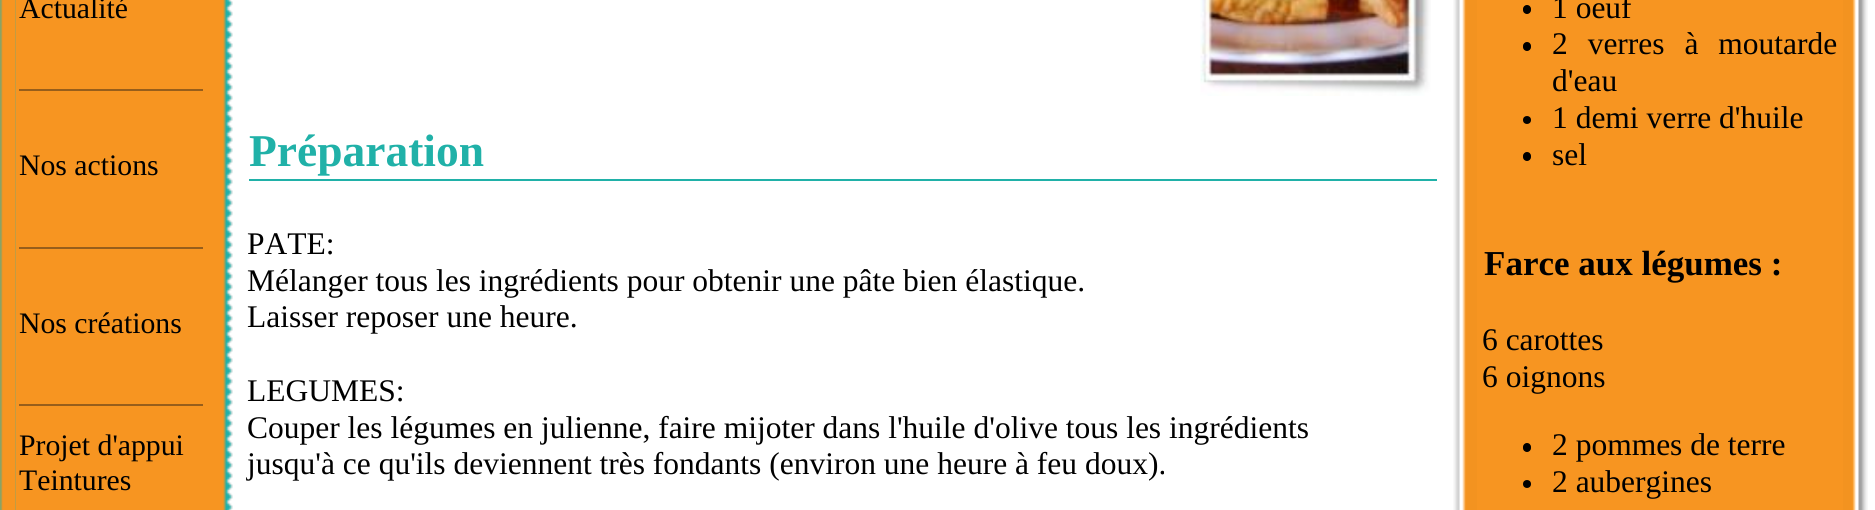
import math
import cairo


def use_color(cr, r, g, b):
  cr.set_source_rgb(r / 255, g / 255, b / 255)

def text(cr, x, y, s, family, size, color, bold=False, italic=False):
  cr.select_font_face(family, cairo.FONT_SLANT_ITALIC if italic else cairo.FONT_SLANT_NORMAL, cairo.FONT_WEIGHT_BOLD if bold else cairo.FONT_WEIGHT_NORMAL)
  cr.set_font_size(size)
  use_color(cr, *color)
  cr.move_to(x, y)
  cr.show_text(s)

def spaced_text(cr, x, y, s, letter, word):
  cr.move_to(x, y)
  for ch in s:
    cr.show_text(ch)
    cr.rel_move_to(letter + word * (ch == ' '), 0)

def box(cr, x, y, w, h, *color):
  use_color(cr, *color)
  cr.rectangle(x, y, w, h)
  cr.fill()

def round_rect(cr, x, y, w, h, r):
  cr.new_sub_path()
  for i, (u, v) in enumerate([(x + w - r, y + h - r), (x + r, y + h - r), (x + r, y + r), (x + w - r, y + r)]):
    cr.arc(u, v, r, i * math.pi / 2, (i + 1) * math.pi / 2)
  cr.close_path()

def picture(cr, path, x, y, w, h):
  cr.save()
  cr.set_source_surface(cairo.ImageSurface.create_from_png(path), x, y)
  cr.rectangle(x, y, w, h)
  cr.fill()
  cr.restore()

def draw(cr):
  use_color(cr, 255, 255, 255)
  cr.paint()
  box(cr, 0, 0, 226, 510, 32, 177, 168)
  picture(cr, "img_01.png", 0, 0, 16, 510)
  box(cr, 16, 0, 194, 510, 247, 149, 33)
  box(cr, 19, 89, 184, 2, 151, 94, 27)
  box(cr, 19, 247, 184, 2, 151, 94, 27)
  box(cr, 19, 404, 184, 2, 151, 94, 27)
  picture(cr, "img_02.png", 210, 0, 16, 510)
  picture(cr, "img_03.png", 225, 0, 8, 510)
  picture(cr, "img_04.png", 1200, 0, 231, 96)
  box(cr, 249, 179, 1188, 2, 32, 177, 168)
  picture(cr, "img_05.png", 1453, 0, 24, 510)
  box(cr, 1477, 0, 366, 510, 247, 149, 33)
  use_color(cr, 0, 0, 0)
  round_rect(cr, 1523, 5, 8, 9, 4)
  cr.fill()
  round_rect(cr, 1523, 42, 8, 9, 4)
  cr.fill()
  cr.arc(1527, 120, 4, 0, 2 * math.pi)
  cr.fill()
  round_rect(cr, 1523, 152, 8, 9, 4)
  cr.fill()
  round_rect(cr, 1523, 443, 8, 9, 4)
  cr.fill()
  cr.arc(1527, 484, 4, 0, 2 * math.pi)
  cr.fill()
  picture(cr, "img_06.png", 1843, 0, 25, 510)
  text(cr, 19, 18, "Actualité", "Liberation Serif", 29.75, (0, 0, 0))
  text(cr, 19, 175, "Nos actions", "Liberation Serif", 29.75, (0, 0, 0))
  text(cr, 19, 333, "Nos créations", "Liberation Serif", 29.75, (0, 0, 0))
  text(cr, 19, 455, "Projet d'appui", "Liberation Serif", 29.75, (0, 0, 0))
  text(cr, 19, 490, "Teintures", "Liberation Serif", 29.75, (0, 0, 0))
  text(cr, 249, 166, "Préparation", "Liberation Serif", 45.5, (32, 177, 168), bold=True)
  text(cr, 247, 254, "PATE:", "Liberation Serif", 31.5, (0, 0, 0))
  text(cr, 247, 291, "Mélanger tous les ingrédients pour obtenir une pâte bien élastique.", "Liberation Serif", 31.5, (0, 0, 0))
  text(cr, 247, 327, "Laisser reposer une heure.", "Liberation Serif", 31.5, (0, 0, 0))
  text(cr, 247, 401, "LEGUMES:", "Liberation Serif", 31.5, (0, 0, 0))
  text(cr, 247, 438, "Couper les légumes en julienne, faire mijoter dans l'huile d'olive tous les ingrédients", "Liberation Serif", 31.5, (0, 0, 0))
  text(cr, 247, 474, "jusqu'à ce qu'ils deviennent très fondants (environ une heure à feu doux).", "Liberation Serif", 31.5, (0, 0, 0))
  text(cr, 1552, 18, "1 oeuf", "Liberation Serif", 31.5, (0, 0, 0))
  spaced_text(cr, 1552, 54, "2 verres à moutarde", 0, 12)
  text(cr, 1552, 91, "d'eau", "Liberation Serif", 31.5, (0, 0, 0))
  text(cr, 1552, 128, "1 demi verre d'huile", "Liberation Serif", 31.5, (0, 0, 0))
  text(cr, 1552, 165, "sel", "Liberation Serif", 31.5, (0, 0, 0))
  text(cr, 1484, 275, "Farce aux légumes :", "Liberation Serif", 35, (0, 0, 0), bold=True)
  text(cr, 1482, 350, "6 carottes", "Liberation Serif", 31.5, (0, 0, 0))
  text(cr, 1482, 387, "6 oignons", "Liberation Serif", 31.5, (0, 0, 0))
  text(cr, 1552, 455, "2 pommes de terre", "Liberation Serif", 31.5, (0, 0, 0))
  text(cr, 1552, 492, "2 aubergines", "Liberation Serif", 31.5, (0, 0, 0))


surface = cairo.ImageSurface(cairo.FORMAT_RGB24, 1875, 510)
cr = cairo.Context(surface)
options = cairo.FontOptions()
options.set_hint_metrics(cairo.HINT_METRICS_OFF)
options.set_hint_style(cairo.HINT_STYLE_NONE)
cr.set_font_options(options)
cr.set_miter_limit(4)
draw(cr)
surface.write_to_png("out.png")
